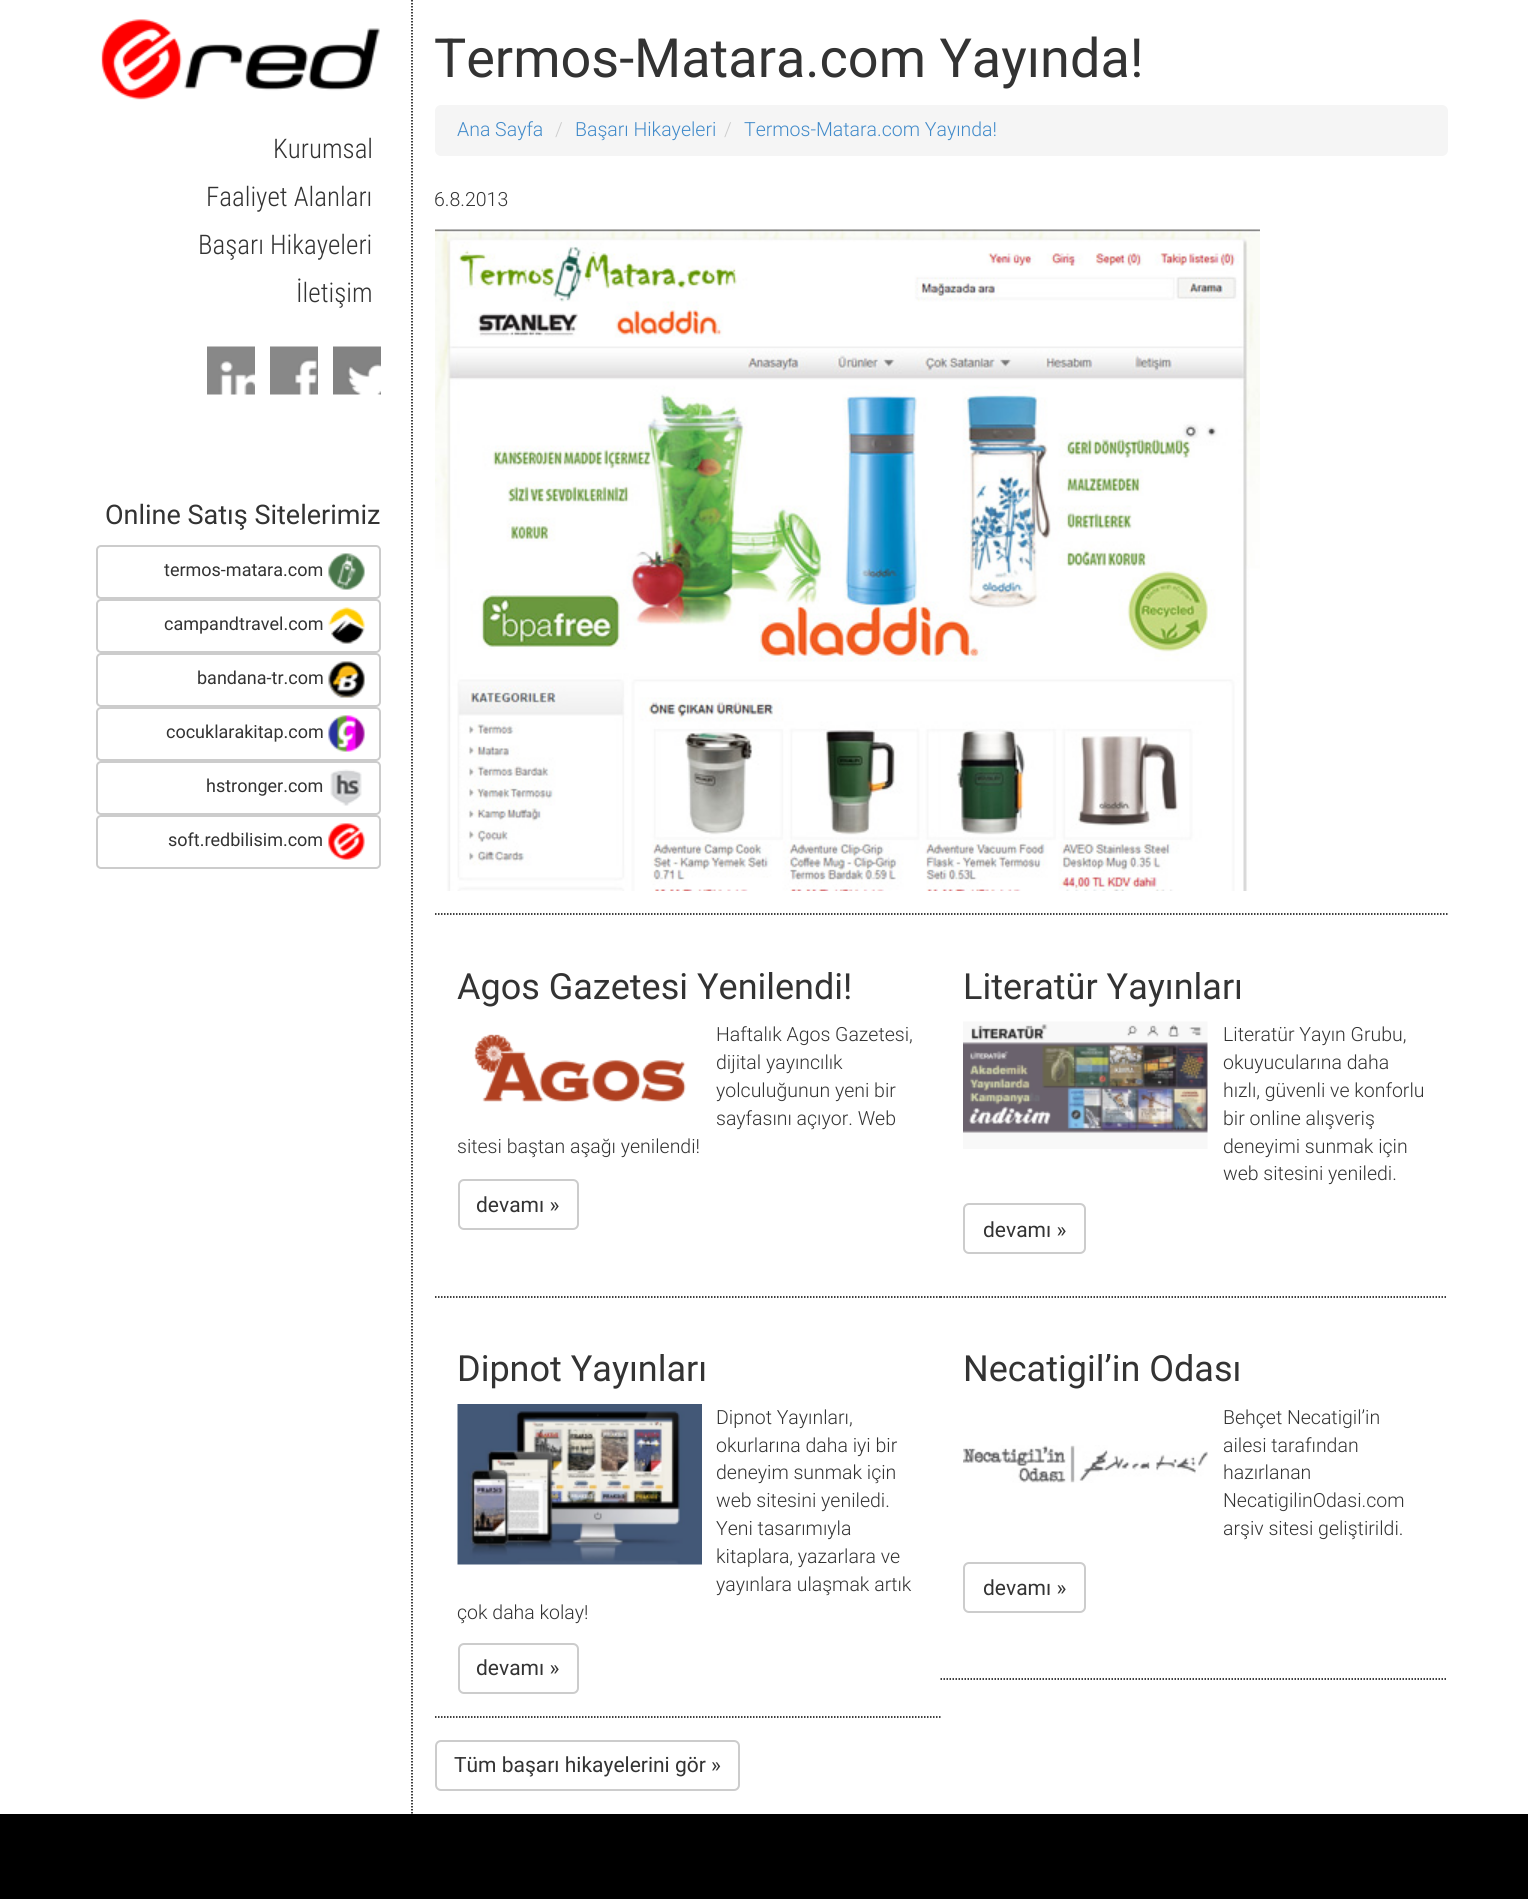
import math
import cairo


def use_color(cr, r, g, b):
  cr.set_source_rgb(r / 255, g / 255, b / 255)

def text(cr, x, y, s, family, size, color, bold=False, italic=False):
  cr.select_font_face(family, cairo.FONT_SLANT_ITALIC if italic else cairo.FONT_SLANT_NORMAL, cairo.FONT_WEIGHT_BOLD if bold else cairo.FONT_WEIGHT_NORMAL)
  cr.set_font_size(size)
  use_color(cr, *color)
  cr.move_to(x, y)
  cr.show_text(s)

def box(cr, x, y, w, h, *color):
  use_color(cr, *color)
  cr.rectangle(x, y, w, h)
  cr.fill()

def round_rect(cr, x, y, w, h, r):
  cr.new_sub_path()
  for i, (u, v) in enumerate([(x + w - r, y + h - r), (x + r, y + h - r), (x + r, y + r), (x + w - r, y + r)]):
    cr.arc(u, v, r, i * math.pi / 2, (i + 1) * math.pi / 2)
  cr.close_path()

def picture(cr, path, x, y, w, h):
  cr.save()
  cr.set_source_surface(cairo.ImageSurface.create_from_png(path), x, y)
  cr.rectangle(x, y, w, h)
  cr.fill()
  cr.restore()

def draw(cr):
  use_color(cr, 255, 255, 255)
  cr.paint()
  cr.save()
  cr.rectangle(60, 0, 1410, 1814)
  cr.clip()
  cr.new_path()
  cr.move_to(412, 0)
  cr.line_to(412, 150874.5)
  use_color(cr, 0, 0, 0)
  cr.set_line_width(1.5)
  cr.set_dash([1.5, 1.5])
  cr.stroke()
  cr.restore()
  picture(cr, "img_01.png", 101, 19, 279, 81)
  picture(cr, "img_02.png", 207, 346, 48, 49)
  picture(cr, "img_03.png", 270, 346, 48, 49)
  picture(cr, "img_04.png", 333, 346, 48, 49)
  round_rect(cr, 97, 546, 283, 52, 4)
  use_color(cr, 204, 204, 204)
  cr.stroke()
  picture(cr, "img_05.png", 328, 553, 37, 37)
  round_rect(cr, 97, 600, 283, 52, 4)
  cr.stroke()
  picture(cr, "img_06.png", 328, 607, 37, 37)
  round_rect(cr, 97, 654, 283, 52, 4)
  cr.stroke()
  picture(cr, "img_07.png", 328, 661, 37, 37)
  round_rect(cr, 97, 708, 283, 52, 4)
  cr.stroke()
  picture(cr, "img_08.png", 328, 715, 37, 37)
  round_rect(cr, 97, 762, 283, 52, 4)
  cr.stroke()
  picture(cr, "img_09.png", 330, 769, 32, 37)
  round_rect(cr, 97, 816, 283, 52, 4)
  cr.stroke()
  picture(cr, "img_10.png", 328, 823, 37, 37)
  use_color(cr, 245, 245, 245)
  round_rect(cr, 435, 105, 1013, 51, 6)
  cr.fill()
  cr.new_path()
  cr.move_to(435, 914)
  cr.line_to(1447.5, 914)
  use_color(cr, 0, 0, 0)
  cr.set_line_width(1.5)
  cr.set_dash([1.5, 1.5])
  cr.stroke()
  picture(cr, "img_11.png", 435, 229, 825, 662)
  cr.new_path()
  cr.move_to(435, 1297)
  cr.line_to(940.5, 1297)
  cr.stroke()
  picture(cr, "img_12.png", 474, 1034, 212, 68)
  round_rect(cr, 459, 1180, 119, 49, 5)
  use_color(cr, 204, 204, 204)
  cr.set_line_width(2)
  cr.set_dash([])
  cr.stroke()
  cr.new_path()
  cr.move_to(940.5, 1297)
  cr.line_to(1447.5, 1297)
  use_color(cr, 0, 0, 0)
  cr.set_line_width(1.5)
  cr.set_dash([1.5, 1.5])
  cr.stroke()
  picture(cr, "img_13.png", 963, 1021, 245, 128)
  round_rect(cr, 964, 1204, 121, 49, 5)
  use_color(cr, 204, 204, 204)
  cr.set_line_width(2)
  cr.set_dash([])
  cr.stroke()
  cr.new_path()
  cr.move_to(435, 1717)
  cr.line_to(940.5, 1717)
  use_color(cr, 0, 0, 0)
  cr.set_line_width(1.5)
  cr.set_dash([1.5, 1.5])
  cr.stroke()
  picture(cr, "img_14.png", 457, 1404, 245, 161)
  round_rect(cr, 459, 1644, 119, 49, 5)
  use_color(cr, 204, 204, 204)
  cr.set_line_width(2)
  cr.set_dash([])
  cr.stroke()
  cr.new_path()
  cr.move_to(940.5, 1679)
  cr.line_to(1447.5, 1679)
  use_color(cr, 0, 0, 0)
  cr.set_line_width(1.5)
  cr.set_dash([1.5, 1.5])
  cr.stroke()
  picture(cr, "img_15.png", 963, 1445, 245, 38)
  round_rect(cr, 964, 1563, 121, 49, 5)
  use_color(cr, 204, 204, 204)
  cr.set_line_width(2)
  cr.set_dash([])
  cr.stroke()
  round_rect(cr, 436, 1741, 303, 49, 5)
  cr.stroke()
  box(cr, 0, 1814, 1528, 85, 0, 0, 0)
  text(cr, 273, 158, "Kurumsal", "Roboto Condensed Light", 27, (51, 51, 51))
  text(cr, 206, 206, "Faaliyet Alanları", "Roboto Condensed Light", 27, (51, 51, 51))
  text(cr, 198, 254, "Başarı Hikayeleri", "Roboto Condensed Light", 27, (51, 51, 51))
  text(cr, 296, 302, "İletişim", "Roboto Condensed Light", 27, (51, 51, 51))
  text(cr, 105, 524, "Online Satış Sitelerimiz", "Roboto", 27, (51, 51, 51))
  text(cr, 164, 576, "termos-matara.com", "Roboto", 18, (51, 51, 51))
  text(cr, 164, 630, "campandtravel.com", "Roboto", 18, (51, 51, 51))
  text(cr, 197, 684, "bandana-tr.com", "Roboto", 18, (51, 51, 51))
  text(cr, 166, 738, "cocuklarakitap.com", "Roboto", 18, (51, 51, 51))
  text(cr, 206, 792, "hstronger.com", "Roboto", 18, (51, 51, 51))
  text(cr, 168, 846, "soft.redbilisim.com", "Roboto", 18, (51, 51, 51))
  text(cr, 434, 77, "Termos-Matara.com Yayında!", "Roboto", 54, (51, 51, 51))
  text(cr, 457, 136, "Ana Sayfa", "Roboto Light", 19.5, (66, 139, 202))
  text(cr, 555, 136, "/", "Roboto Light", 19.5, (204, 204, 204))
  text(cr, 575, 136, "Başarı Hikayeleri", "Roboto Light", 19.5, (66, 139, 202))
  text(cr, 724, 136, "/", "Roboto Light", 19.5, (204, 204, 204))
  text(cr, 744, 136, "Termos-Matara.com Yayında!", "Roboto Light", 19.5, (66, 139, 202))
  text(cr, 434, 206, "6.8.2013", "Roboto Light", 19.5, (51, 51, 51))
  text(cr, 457, 999, "Agos Gazetesi Yenilendi!", "Roboto", 36, (51, 51, 51))
  text(cr, 716, 1041, "Haftalık Agos Gazetesi,", "Roboto Light", 19.5, (51, 51, 51))
  text(cr, 716, 1069, "dijital yayıncılık", "Roboto Light", 19.5, (51, 51, 51))
  text(cr, 716, 1097, "yolculuğunun yeni bir", "Roboto Light", 19.5, (51, 51, 51))
  text(cr, 716, 1125, "sayfasını açıyor. Web", "Roboto Light", 19.5, (51, 51, 51))
  text(cr, 457, 1153, "sitesi baştan aşağı yenilendi!", "Roboto Light", 19.5, (51, 51, 51))
  text(cr, 476, 1212, "devamı »", "Roboto", 21, (51, 51, 51))
  text(cr, 963, 999, "Literatür Yayınları", "Roboto", 36, (51, 51, 51))
  text(cr, 1223, 1041, "Literatür Yayın Grubu,", "Roboto Light", 19.5, (51, 51, 51))
  text(cr, 1223, 1069, "okuyucularına daha", "Roboto Light", 19.5, (51, 51, 51))
  text(cr, 1223, 1097, "hızlı, güvenli ve konforlu", "Roboto Light", 19.5, (51, 51, 51))
  text(cr, 1223, 1125, "bir online alışveriş", "Roboto Light", 19.5, (51, 51, 51))
  text(cr, 1223, 1153, "deneyimi sunmak için", "Roboto Light", 19.5, (51, 51, 51))
  text(cr, 1223, 1180, "web sitesini yeniledi.", "Roboto Light", 19.5, (51, 51, 51))
  text(cr, 983, 1237, "devamı »", "Roboto", 21, (51, 51, 51))
  text(cr, 457, 1381, "Dipnot Yayınları", "Roboto", 36, (51, 51, 51))
  text(cr, 716, 1424, "Dipnot Yayınları,", "Roboto Light", 19.5, (51, 51, 51))
  text(cr, 716, 1452, "okurlarına daha iyi bir", "Roboto Light", 19.5, (51, 51, 51))
  text(cr, 716, 1479, "deneyim sunmak için", "Roboto Light", 19.5, (51, 51, 51))
  text(cr, 716, 1507, "web sitesini yeniledi.", "Roboto Light", 19.5, (51, 51, 51))
  text(cr, 716, 1535, "Yeni tasarımıyla", "Roboto Light", 19.5, (51, 51, 51))
  text(cr, 716, 1563, "kitaplara, yazarlara ve", "Roboto Light", 19.5, (51, 51, 51))
  text(cr, 716, 1591, "yayınlara ulaşmak artık", "Roboto Light", 19.5, (51, 51, 51))
  text(cr, 457, 1619, "çok daha kolay!", "Roboto Light", 19.5, (51, 51, 51))
  text(cr, 476, 1675, "devamı »", "Roboto", 21, (51, 51, 51))
  text(cr, 963, 1381, "Necatigil’in Odası", "Roboto", 36, (51, 51, 51))
  text(cr, 1223, 1424, "Behçet Necatigil’in", "Roboto Light", 19.5, (51, 51, 51))
  text(cr, 1223, 1452, "ailesi tarafından", "Roboto Light", 19.5, (51, 51, 51))
  text(cr, 1223, 1479, "hazırlanan", "Roboto Light", 19.5, (51, 51, 51))
  text(cr, 1223, 1507, "NecatigilinOdasi.com", "Roboto Light", 19.5, (51, 51, 51))
  text(cr, 1223, 1535, "arşiv sitesi geliştirildi.", "Roboto Light", 19.5, (51, 51, 51))
  text(cr, 983, 1595, "devamı »", "Roboto", 21, (51, 51, 51))
  text(cr, 454, 1772, "Tüm başarı hikayelerini gör »", "Roboto", 21, (51, 51, 51))


surface = cairo.ImageSurface(cairo.FORMAT_RGB24, 1528, 1899)
cr = cairo.Context(surface)
options = cairo.FontOptions()
options.set_hint_metrics(cairo.HINT_METRICS_OFF)
options.set_hint_style(cairo.HINT_STYLE_NONE)
cr.set_font_options(options)
cr.set_miter_limit(4)
draw(cr)
surface.write_to_png("out.png")
